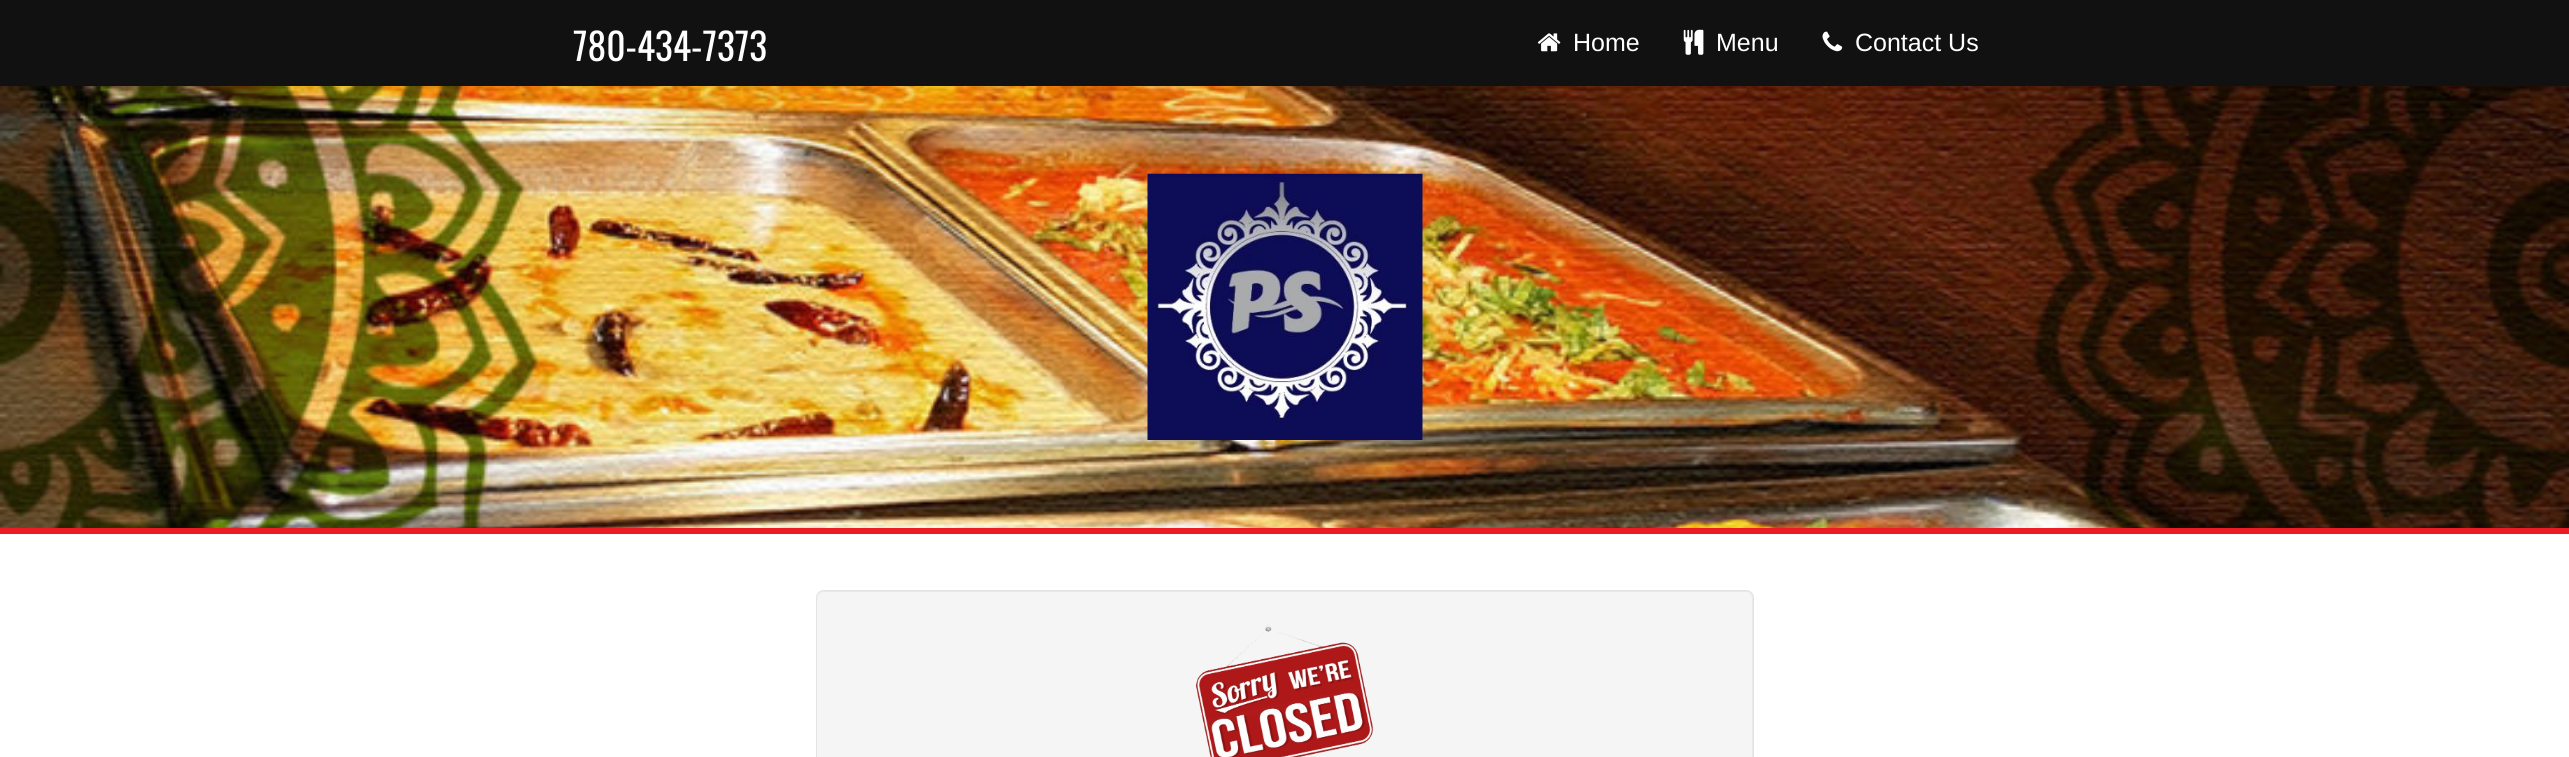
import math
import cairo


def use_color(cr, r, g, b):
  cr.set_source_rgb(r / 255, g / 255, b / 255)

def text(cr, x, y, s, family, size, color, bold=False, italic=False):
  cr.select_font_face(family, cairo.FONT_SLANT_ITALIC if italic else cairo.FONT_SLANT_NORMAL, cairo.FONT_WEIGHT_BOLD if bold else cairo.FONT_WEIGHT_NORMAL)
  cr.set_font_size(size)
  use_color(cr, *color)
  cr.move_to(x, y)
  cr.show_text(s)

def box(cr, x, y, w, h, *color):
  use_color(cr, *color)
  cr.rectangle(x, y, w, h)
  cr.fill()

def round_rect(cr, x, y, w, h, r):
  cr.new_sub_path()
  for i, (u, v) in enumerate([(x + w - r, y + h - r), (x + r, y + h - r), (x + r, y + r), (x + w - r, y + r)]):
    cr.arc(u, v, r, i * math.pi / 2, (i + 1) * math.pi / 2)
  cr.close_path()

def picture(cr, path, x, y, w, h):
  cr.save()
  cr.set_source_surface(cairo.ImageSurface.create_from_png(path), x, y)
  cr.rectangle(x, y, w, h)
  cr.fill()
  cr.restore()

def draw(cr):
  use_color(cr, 255, 255, 255)
  cr.paint()
  picture(cr, "img_01.png", 0, 86, 2569, 442)
  box(cr, 0, 528, 2569, 6, 236, 28, 36)
  box(cr, 0, 0, 2569, 86, 18, 17, 18)
  picture(cr, "img_02.png", 1537, 33, 24, 19)
  picture(cr, "img_03.png", 1683, 29, 21, 26)
  picture(cr, "img_04.png", 1822, 31, 21, 21)
  picture(cr, "img_05.png", 1147, 173, 276, 267)
  use_color(cr, 245, 245, 245)
  round_rect(cr, 816, 590, 938, 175, 8)
  cr.fill()
  use_color(cr, 233, 233, 233)
  cr.new_path()
  cr.move_to(824, 592)
  cr.line_to(1746, 592)
  cr.curve_to(1750, 592, 1752, 595, 1752, 599)
  cr.line_to(1752, 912)
  cr.curve_to(1752, 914, 1752, 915, 1751, 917)
  cr.curve_to(1752, 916, 1753, 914, 1753, 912)
  cr.line_to(1753, 597)
  cr.curve_to(1753, 594, 1750, 591, 1747, 591)
  cr.line_to(824, 591)
  cr.curve_to(821, 591, 818, 594, 818, 597)
  cr.line_to(818, 599)
  cr.curve_to(818, 595, 820, 592, 824, 592)
  cr.close_path()
  cr.fill()
  round_rect(cr, 816.5, 590.5, 937, 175, 7.5)
  use_color(cr, 227, 227, 227)
  cr.set_line_width(1)
  cr.stroke()
  picture(cr, "img_06.png", 1196, 625, 178, 132)
  text(cr, 573, 61, "780-434-7373", "Oswald", 37.5, (255, 255, 255))
  text(cr, 1573, 51, "Home", "Liberation Sans", 25, (255, 255, 255))
  text(cr, 1716, 51, "Menu", "Liberation Sans", 25, (255, 255, 255))
  text(cr, 1855, 51, "Contact Us", "Liberation Sans", 25, (255, 255, 255))


surface = cairo.ImageSurface(cairo.FORMAT_RGB24, 2569, 757)
cr = cairo.Context(surface)
options = cairo.FontOptions()
options.set_hint_metrics(cairo.HINT_METRICS_OFF)
options.set_hint_style(cairo.HINT_STYLE_NONE)
cr.set_font_options(options)
cr.set_miter_limit(4)
draw(cr)
surface.write_to_png("out.png")
